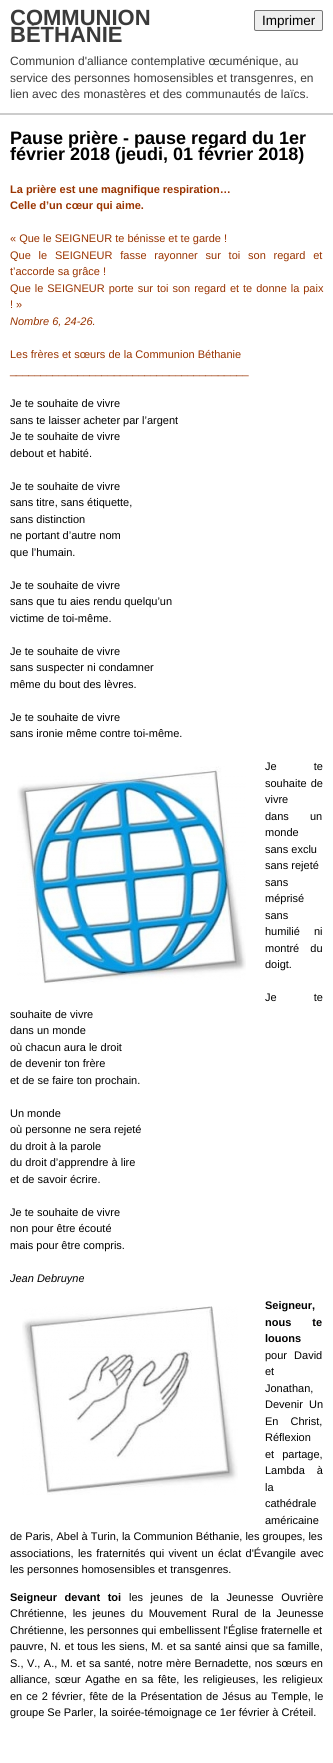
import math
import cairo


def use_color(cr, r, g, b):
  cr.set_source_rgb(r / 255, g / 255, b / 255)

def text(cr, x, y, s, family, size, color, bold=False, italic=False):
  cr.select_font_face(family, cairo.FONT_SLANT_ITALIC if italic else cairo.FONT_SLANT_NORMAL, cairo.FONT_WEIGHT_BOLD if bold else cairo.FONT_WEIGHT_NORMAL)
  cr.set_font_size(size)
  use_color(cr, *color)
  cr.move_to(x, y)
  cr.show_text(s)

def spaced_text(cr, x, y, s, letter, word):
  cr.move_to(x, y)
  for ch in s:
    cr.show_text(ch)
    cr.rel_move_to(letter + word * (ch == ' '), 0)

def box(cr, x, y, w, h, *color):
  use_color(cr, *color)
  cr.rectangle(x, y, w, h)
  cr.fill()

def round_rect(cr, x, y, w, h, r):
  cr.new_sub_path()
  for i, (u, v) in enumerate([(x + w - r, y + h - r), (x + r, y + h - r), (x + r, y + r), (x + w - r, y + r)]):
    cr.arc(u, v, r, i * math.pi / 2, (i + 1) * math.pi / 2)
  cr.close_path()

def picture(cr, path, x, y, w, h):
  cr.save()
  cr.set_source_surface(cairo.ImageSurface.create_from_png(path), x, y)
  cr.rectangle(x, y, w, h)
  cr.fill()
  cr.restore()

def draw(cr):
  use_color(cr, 255, 255, 255)
  cr.paint()
  box(cr, 0, 113, 333, 2, 204, 204, 204)
  use_color(cr, 239, 239, 239)
  round_rect(cr, 254.5, 10.5, 68, 20, 1.5)
  cr.fill_preserve()
  use_color(cr, 118, 118, 118)
  cr.set_line_width(1)
  cr.stroke()
  picture(cr, "img_01.png", 17, 766, 229, 218)
  picture(cr, "img_02.png", 22, 1306, 216, 189)
  text(cr, 10, 25, "COMMUNION", "Liberation Sans", 22, (58, 58, 58), bold=True)
  text(cr, 10, 42, "BÉTHANIE", "Liberation Sans", 22, (58, 58, 58), bold=True)
  text(cr, 262, 25, "Imprimer", "Liberation Sans", 13.5, (0, 0, 0))
  text(cr, 10, 65, "Communion d'alliance contemplative œcuménique, au", "Liberation Sans", 12, (58, 58, 58))
  text(cr, 10, 82, "service des personnes homosensibles et transgenres, en", "Liberation Sans", 12, (58, 58, 58))
  text(cr, 10, 98, "lien avec des monastères et des communautés de laïcs.", "Liberation Sans", 12, (58, 58, 58))
  text(cr, 10, 144, "Pause prière - pause regard du 1er", "Liberation Sans", 18, (0, 0, 0), bold=True)
  text(cr, 10, 160, "février 2018 (jeudi, 01 février 2018)", "Liberation Sans", 18, (0, 0, 0), bold=True)
  text(cr, 10, 193, "La prière est une magnifique respiration…", "Liberation Sans", 11, (153, 51, 0), bold=True)
  text(cr, 10, 209, "Celle d’un cœur qui aime.", "Liberation Sans", 11, (153, 51, 0), bold=True)
  text(cr, 10, 242, "« Que le SEIGNEUR te bénisse et te garde !", "Liberation Sans", 11, (153, 51, 0))
  spaced_text(cr, 10, 259, "Que le SEIGNEUR fasse rayonner sur toi son regard et", 0, 4.75)
  text(cr, 10, 275, "t’accorde sa grâce !", "Liberation Sans", 11, (153, 51, 0))
  spaced_text(cr, 10, 292, "Que le SEIGNEUR porte sur toi son regard et te donne la paix", 0, 0.9)
  text(cr, 10, 308, "! »", "Liberation Sans", 11, (153, 51, 0))
  text(cr, 10, 325, "Nombre 6, 24-26.", "Liberation Sans", 11, (153, 51, 0), italic=True)
  text(cr, 10, 358, "Les frères et sœurs de la Communion Béthanie", "Liberation Sans", 11, (153, 51, 0))
  text(cr, 10, 374, "_______________________________________", "Liberation Sans", 11, (153, 51, 0))
  text(cr, 10, 407, "Je te souhaite de vivre", "Liberation Sans", 11, (0, 0, 0))
  text(cr, 10, 424, "sans te laisser acheter par l’argent", "Liberation Sans", 11, (0, 0, 0))
  text(cr, 10, 440, "Je te souhaite de vivre", "Liberation Sans", 11, (0, 0, 0))
  text(cr, 10, 457, "debout et habité.", "Liberation Sans", 11, (0, 0, 0))
  text(cr, 10, 490, "Je te souhaite de vivre", "Liberation Sans", 11, (0, 0, 0))
  text(cr, 10, 506, "sans titre, sans étiquette,", "Liberation Sans", 11, (0, 0, 0))
  text(cr, 10, 523, "sans distinction", "Liberation Sans", 11, (0, 0, 0))
  text(cr, 10, 539, "ne portant d’autre nom", "Liberation Sans", 11, (0, 0, 0))
  text(cr, 10, 556, "que l’humain.", "Liberation Sans", 11, (0, 0, 0))
  text(cr, 10, 589, "Je te souhaite de vivre", "Liberation Sans", 11, (0, 0, 0))
  text(cr, 10, 605, "sans que tu aies rendu quelqu’un", "Liberation Sans", 11, (0, 0, 0))
  text(cr, 10, 622, "victime de toi-même.", "Liberation Sans", 11, (0, 0, 0))
  text(cr, 10, 655, "Je te souhaite de vivre", "Liberation Sans", 11, (0, 0, 0))
  text(cr, 10, 671, "sans suspecter ni condamner", "Liberation Sans", 11, (0, 0, 0))
  text(cr, 10, 688, "même du bout des lèvres.", "Liberation Sans", 11, (0, 0, 0))
  text(cr, 10, 721, "Je te souhaite de vivre", "Liberation Sans", 11, (0, 0, 0))
  text(cr, 10, 737, "sans ironie même contre toi-même.", "Liberation Sans", 11, (0, 0, 0))
  spaced_text(cr, 265, 770, "Je te", 0, 34)
  spaced_text(cr, 265, 787, "souhaite de", 0, 1)
  text(cr, 265, 803, "vivre", "Liberation Sans", 11, (0, 0, 0))
  spaced_text(cr, 265, 820, "dans un", 0, 18)
  text(cr, 265, 836, "monde", "Liberation Sans", 11, (0, 0, 0))
  text(cr, 265, 853, "sans exclu", "Liberation Sans", 11, (0, 0, 0))
  text(cr, 265, 869, "sans rejeté", "Liberation Sans", 11, (0, 0, 0))
  text(cr, 265, 886, "sans", "Liberation Sans", 11, (0, 0, 0))
  text(cr, 265, 902, "méprisé", "Liberation Sans", 11, (0, 0, 0))
  text(cr, 265, 919, "sans", "Liberation Sans", 11, (0, 0, 0))
  spaced_text(cr, 265, 935, "humilié ni", 0, 11)
  spaced_text(cr, 265, 952, "montré du", 0, 8)
  text(cr, 265, 968, "doigt.", "Liberation Sans", 11, (0, 0, 0))
  spaced_text(cr, 265, 1001, "Je te", 0, 34)
  text(cr, 10, 1018, "souhaite de vivre", "Liberation Sans", 11, (0, 0, 0))
  text(cr, 10, 1034, "dans un monde", "Liberation Sans", 11, (0, 0, 0))
  text(cr, 10, 1051, "où chacun aura le droit", "Liberation Sans", 11, (0, 0, 0))
  text(cr, 10, 1067, "de devenir ton frère", "Liberation Sans", 11, (0, 0, 0))
  text(cr, 10, 1084, "et de se faire ton prochain.", "Liberation Sans", 11, (0, 0, 0))
  text(cr, 10, 1117, "Un monde", "Liberation Sans", 11, (0, 0, 0))
  text(cr, 10, 1133, "où personne ne sera rejeté", "Liberation Sans", 11, (0, 0, 0))
  text(cr, 10, 1150, "du droit à la parole", "Liberation Sans", 11, (0, 0, 0))
  text(cr, 10, 1166, "du droit d’apprendre à lire", "Liberation Sans", 11, (0, 0, 0))
  text(cr, 10, 1183, "et de savoir écrire.", "Liberation Sans", 11, (0, 0, 0))
  text(cr, 10, 1216, "Je te souhaite de vivre", "Liberation Sans", 11, (0, 0, 0))
  text(cr, 10, 1232, "non pour être écouté", "Liberation Sans", 11, (0, 0, 0))
  text(cr, 10, 1249, "mais pour être compris.", "Liberation Sans", 11, (0, 0, 0))
  text(cr, 10, 1282, "Jean Debruyne", "Liberation Sans", 11, (0, 0, 0), italic=True)
  text(cr, 265, 1309, "Seigneur,", "Liberation Sans", 11, (0, 0, 0), bold=True)
  spaced_text(cr, 265, 1326, "nous te", 0, 18)
  text(cr, 265, 1342, "louons", "Liberation Sans", 11, (0, 0, 0), bold=True)
  cr.select_font_face("Liberation Sans")
  spaced_text(cr, 265, 1359, "pour David", 0, 4)
  text(cr, 265, 1375, "et", "Liberation Sans", 11, (0, 0, 0))
  text(cr, 265, 1392, "Jonathan,", "Liberation Sans", 11, (0, 0, 0))
  spaced_text(cr, 265, 1408, "Devenir Un", 0, 3)
  spaced_text(cr, 265, 1425, "En Christ,", 0, 9)
  text(cr, 265, 1441, "Réflexion", "Liberation Sans", 11, (0, 0, 0))
  spaced_text(cr, 265, 1458, "et partage,", 0, 5)
  spaced_text(cr, 265, 1474, "Lambda à", 0, 9)
  text(cr, 265, 1491, "la", "Liberation Sans", 11, (0, 0, 0))
  text(cr, 265, 1507, "cathédrale", "Liberation Sans", 11, (0, 0, 0))
  text(cr, 265, 1524, "américaine", "Liberation Sans", 11, (0, 0, 0))
  text(cr, 10, 1540, "de Paris, Abel à Turin, la Communion Béthanie, les groupes, les", "Liberation Sans", 11, (0, 0, 0))
  spaced_text(cr, 10, 1557, "associations, les fraternités qui vivent un éclat d'Évangile avec", 0, 1.25)
  text(cr, 10, 1573, "les personnes homosensibles et transgenres.", "Liberation Sans", 11, (0, 0, 0))
  cr.select_font_face("Liberation Sans", cairo.FONT_SLANT_NORMAL, cairo.FONT_WEIGHT_BOLD)
  spaced_text(cr, 10, 1601, "Seigneur devant toi", 0, 4.5)
  cr.select_font_face("Liberation Sans")
  spaced_text(cr, 129, 1601, "les jeunes de la Jeunesse Ouvrière", 0, 4.5)
  spaced_text(cr, 10, 1617, "Chrétienne, les jeunes du Mouvement Rural de la Jeunesse", 0, 2.75)
  text(cr, 10, 1634, "Chrétienne, les personnes qui embellissent l'Église fraternelle et", "Liberation Sans", 11, (0, 0, 0))
  spaced_text(cr, 10, 1650, "pauvre, N. et tous les siens, M. et sa santé ainsi que sa famille,", 0, 0.4)
  spaced_text(cr, 10, 1667, "S., V., A., M. et sa santé, notre mère Bernadette, nos sœurs en", 0, 0.4)
  spaced_text(cr, 10, 1683, "alliance, sœur Agathe en sa fête, les religieuses, les religieux", 0, 1.6)
  spaced_text(cr, 10, 1700, "en ce 2 février, fête de la Présentation de Jésus au Temple, le", 0, 0.9)
  text(cr, 10, 1716, "groupe Se Parler, la soirée-témoignage ce 1er février à Créteil.", "Liberation Sans", 11, (0, 0, 0))


surface = cairo.ImageSurface(cairo.FORMAT_RGB24, 333, 1763)
cr = cairo.Context(surface)
options = cairo.FontOptions()
options.set_hint_metrics(cairo.HINT_METRICS_OFF)
options.set_hint_style(cairo.HINT_STYLE_NONE)
cr.set_font_options(options)
cr.set_miter_limit(4)
draw(cr)
surface.write_to_png("out.png")
